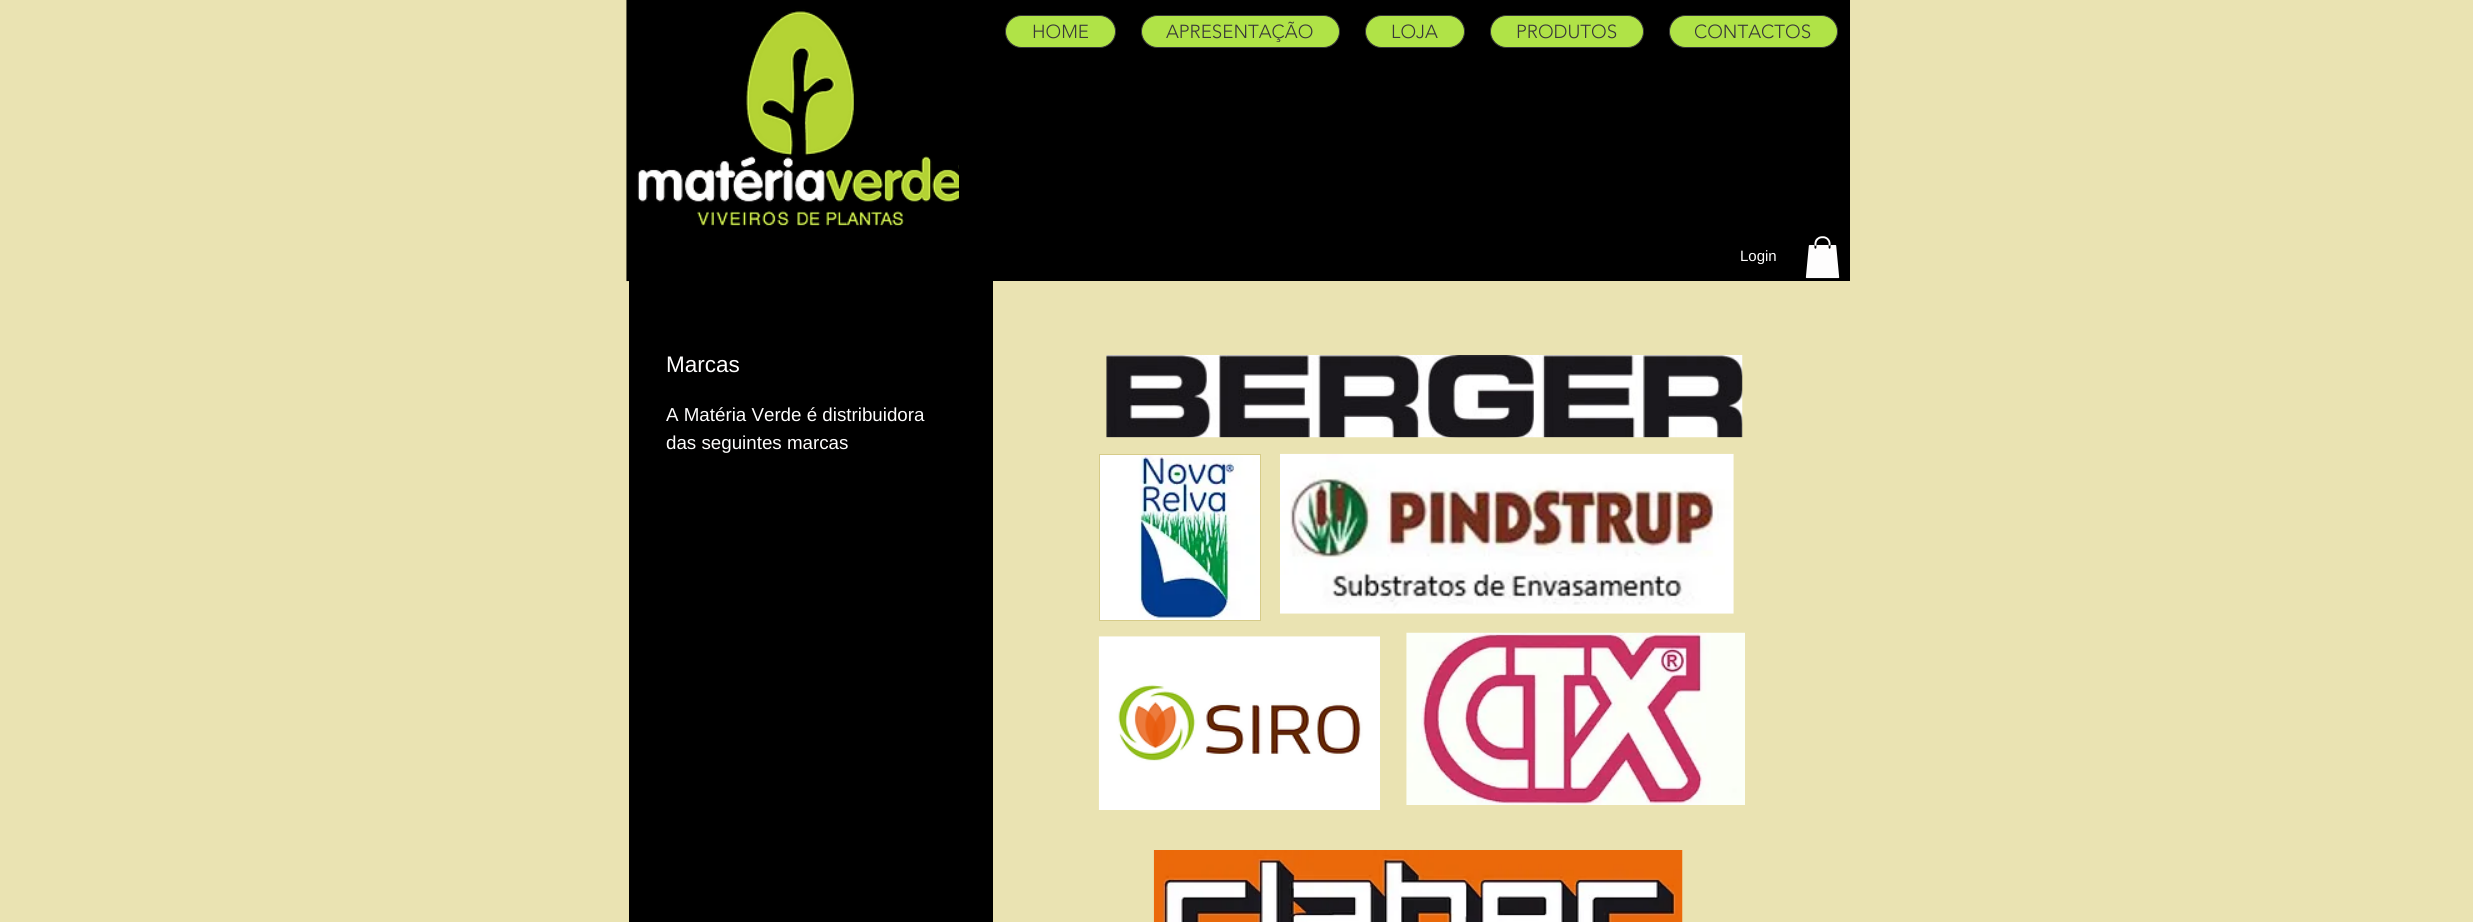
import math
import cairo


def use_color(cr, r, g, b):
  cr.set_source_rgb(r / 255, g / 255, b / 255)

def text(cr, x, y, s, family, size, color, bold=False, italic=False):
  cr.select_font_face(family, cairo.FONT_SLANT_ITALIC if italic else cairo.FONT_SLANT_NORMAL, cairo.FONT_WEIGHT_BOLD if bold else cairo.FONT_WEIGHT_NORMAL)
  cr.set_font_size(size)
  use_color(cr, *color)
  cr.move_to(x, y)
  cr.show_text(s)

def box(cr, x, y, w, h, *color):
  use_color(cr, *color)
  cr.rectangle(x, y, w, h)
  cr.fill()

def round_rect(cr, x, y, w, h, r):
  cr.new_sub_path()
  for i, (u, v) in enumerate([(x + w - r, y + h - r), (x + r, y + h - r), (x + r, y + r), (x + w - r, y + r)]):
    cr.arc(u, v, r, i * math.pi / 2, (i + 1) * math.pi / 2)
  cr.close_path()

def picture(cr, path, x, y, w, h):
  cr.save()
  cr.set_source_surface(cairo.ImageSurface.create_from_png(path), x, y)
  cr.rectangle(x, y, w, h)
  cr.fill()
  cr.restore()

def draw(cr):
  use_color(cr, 234, 227, 178)
  cr.paint()
  picture(cr, "img_01.png", 626, 0, 333, 282)
  box(cr, 959, 0, 891, 281, 0, 0, 0)
  use_color(cr, 176, 227, 71)
  round_rect(cr, 1005.5, 15.5, 110, 32, 16)
  cr.fill_preserve()
  use_color(cr, 56, 56, 56)
  cr.set_line_width(1)
  cr.stroke()
  use_color(cr, 176, 227, 71)
  round_rect(cr, 1141.5, 15.5, 198, 32, 16)
  cr.fill_preserve()
  use_color(cr, 56, 56, 56)
  cr.stroke()
  use_color(cr, 176, 227, 71)
  round_rect(cr, 1365.5, 15.5, 99, 32, 16)
  cr.fill_preserve()
  use_color(cr, 56, 56, 56)
  cr.stroke()
  use_color(cr, 176, 227, 71)
  round_rect(cr, 1490.5, 15.5, 153, 32, 16)
  cr.fill_preserve()
  use_color(cr, 56, 56, 56)
  cr.stroke()
  use_color(cr, 176, 227, 71)
  round_rect(cr, 1669.5, 15.5, 168, 32, 16)
  cr.fill_preserve()
  use_color(cr, 56, 56, 56)
  cr.stroke()
  picture(cr, "img_02.png", 1805, 236, 35, 43)
  box(cr, 629, 281, 364, 641, 0, 0, 0)
  picture(cr, "img_03.png", 1106, 355, 637, 83)
  box(cr, 1099, 454, 162, 167, 214, 203, 137)
  picture(cr, "img_04.png", 1100, 455, 160, 165)
  picture(cr, "img_05.png", 1280, 453, 454, 161)
  picture(cr, "img_06.png", 1098, 636, 282, 174)
  picture(cr, "img_07.png", 1406, 632, 339, 173)
  picture(cr, "img_08.png", 1153, 850, 530, 72)
  text(cr, 1032, 38, "HOME", "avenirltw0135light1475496 Light", 18.75, (56, 56, 56))
  text(cr, 1166, 38, "APRESENTAÇÃO", "avenirltw0135light1475496 Light", 18.75, (56, 56, 56))
  text(cr, 1391, 38, "LOJA", "avenirltw0135light1475496 Light", 18.75, (56, 56, 56))
  text(cr, 1516, 38, "PRODUTOS", "avenirltw0135light1475496 Light", 18.75, (56, 56, 56))
  text(cr, 1694, 38, "CONTACTOS", "avenirltw0135light1475496 Light", 18.75, (56, 56, 56))
  text(cr, 1740, 261, "Login", "Liberation Sans", 15, (254, 253, 253))
  text(cr, 666, 372, "Marcas", "Liberation Sans", 22.5, (254, 253, 253))
  text(cr, 666, 421, "A Matéria Verde é distribuidora", "Liberation Sans", 18.75, (254, 253, 253))
  text(cr, 666, 449, "das seguintes marcas", "Liberation Sans", 18.75, (254, 253, 253))


surface = cairo.ImageSurface(cairo.FORMAT_RGB24, 2473, 922)
cr = cairo.Context(surface)
options = cairo.FontOptions()
options.set_hint_metrics(cairo.HINT_METRICS_OFF)
options.set_hint_style(cairo.HINT_STYLE_NONE)
cr.set_font_options(options)
cr.set_miter_limit(4)
draw(cr)
surface.write_to_png("out.png")
